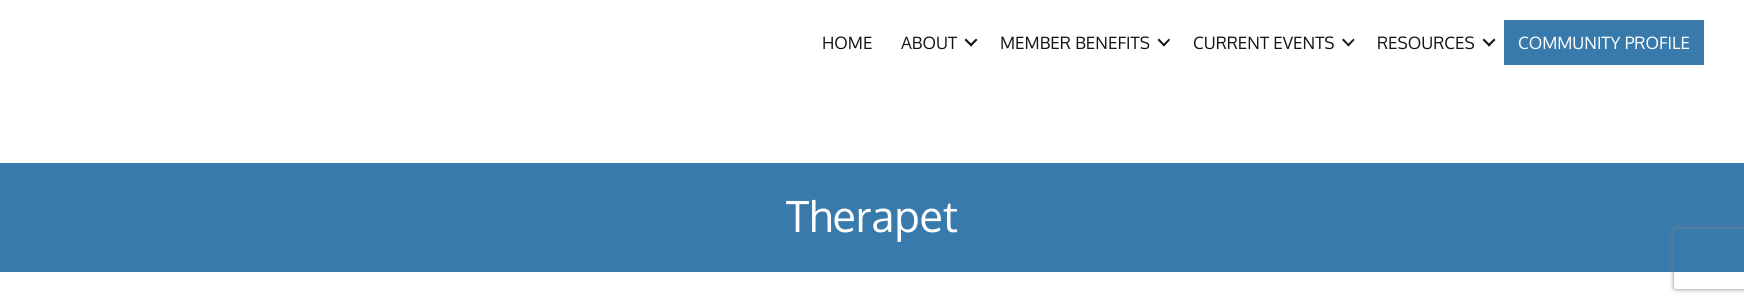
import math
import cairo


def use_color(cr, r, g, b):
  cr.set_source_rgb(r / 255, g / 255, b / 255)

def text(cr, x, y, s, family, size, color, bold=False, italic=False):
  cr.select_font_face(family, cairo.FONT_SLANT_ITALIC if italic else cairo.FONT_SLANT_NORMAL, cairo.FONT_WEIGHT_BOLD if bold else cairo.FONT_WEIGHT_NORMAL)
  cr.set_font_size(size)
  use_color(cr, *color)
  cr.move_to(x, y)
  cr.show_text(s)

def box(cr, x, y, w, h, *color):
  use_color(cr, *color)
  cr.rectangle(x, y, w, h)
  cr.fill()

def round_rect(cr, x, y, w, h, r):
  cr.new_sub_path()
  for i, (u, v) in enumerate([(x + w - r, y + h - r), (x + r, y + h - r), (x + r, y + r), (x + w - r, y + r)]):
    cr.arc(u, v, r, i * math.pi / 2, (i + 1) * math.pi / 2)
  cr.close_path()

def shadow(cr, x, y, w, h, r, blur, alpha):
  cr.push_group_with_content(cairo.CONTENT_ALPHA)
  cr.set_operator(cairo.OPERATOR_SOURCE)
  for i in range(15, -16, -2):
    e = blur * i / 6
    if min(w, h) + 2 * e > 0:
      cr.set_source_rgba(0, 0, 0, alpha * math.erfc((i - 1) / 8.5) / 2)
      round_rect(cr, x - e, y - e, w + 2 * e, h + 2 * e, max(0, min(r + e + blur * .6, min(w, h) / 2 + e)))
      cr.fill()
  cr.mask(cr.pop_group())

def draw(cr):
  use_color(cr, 255, 255, 255)
  cr.paint()
  use_color(cr, 20, 20, 20)
  cr.new_path()
  cr.move_to(976, 38.5)
  cr.line_to(977.5, 40)
  cr.line_to(971, 46.5)
  cr.line_to(969.5, 45)
  cr.close_path()
  cr.fill()
  cr.new_path()
  cr.move_to(966, 38.5)
  cr.line_to(972.5, 45)
  cr.line_to(971, 46.5)
  cr.line_to(964.5, 40)
  cr.close_path()
  cr.fill()
  cr.new_path()
  cr.move_to(1169, 38.5)
  cr.line_to(1170, 40)
  cr.line_to(1164, 46.5)
  cr.line_to(1162.5, 45)
  cr.close_path()
  cr.fill()
  cr.new_path()
  cr.move_to(1159, 38.5)
  cr.line_to(1165, 45)
  cr.line_to(1164, 46.5)
  cr.line_to(1157.5, 40)
  cr.close_path()
  cr.fill()
  cr.new_path()
  cr.move_to(1353.5, 38.5)
  cr.line_to(1354.5, 40)
  cr.line_to(1348.5, 46.5)
  cr.line_to(1347, 45)
  cr.close_path()
  cr.fill()
  cr.new_path()
  cr.move_to(1343.5, 38.5)
  cr.line_to(1349.5, 45)
  cr.line_to(1348.5, 46.5)
  cr.line_to(1342, 40)
  cr.close_path()
  cr.fill()
  cr.new_path()
  cr.move_to(1494, 38.5)
  cr.line_to(1495.5, 40)
  cr.line_to(1489, 46.5)
  cr.line_to(1487.5, 45)
  cr.close_path()
  cr.fill()
  cr.new_path()
  cr.move_to(1484, 38.5)
  cr.line_to(1490.5, 45)
  cr.line_to(1489, 46.5)
  cr.line_to(1482.5, 40)
  cr.close_path()
  cr.fill()
  box(cr, 1504, 20, 200, 45, 57, 122, 172)
  box(cr, 0, 163, 1744, 109, 57, 122, 172)
  cr.save()
  cr.set_fill_rule(cairo.FILL_RULE_EVEN_ODD)
  cr.new_path()
  cr.move_to(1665, 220)
  cr.line_to(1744, 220)
  cr.line_to(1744, 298)
  cr.line_to(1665, 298)
  cr.close_path()
  cr.move_to(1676, 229)
  cr.line_to(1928, 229)
  cr.curve_to(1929, 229, 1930, 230, 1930, 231)
  cr.line_to(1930, 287)
  cr.curve_to(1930, 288, 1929, 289, 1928, 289)
  cr.line_to(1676, 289)
  cr.curve_to(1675, 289, 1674, 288, 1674, 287)
  cr.line_to(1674, 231)
  cr.curve_to(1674, 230, 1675, 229, 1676, 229)
  cr.close_path()
  cr.clip()
  use_color(cr, 128, 128, 128)
  shadow(cr, 1674, 229, 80, 60, 2, 2.5, 1)
  cr.restore()
  text(cr, 822, 49, "HOME", "Oxygen", 17, (20, 20, 20))
  text(cr, 901, 49, "ABOUT", "Oxygen", 17, (20, 20, 20))
  text(cr, 1000, 49, "MEMBER BENEFITS", "Oxygen", 17, (20, 20, 20))
  text(cr, 1193, 49, "CURRENT EVENTS", "Oxygen", 17, (20, 20, 20))
  text(cr, 1377, 49, "RESOURCES", "Oxygen", 17, (20, 20, 20))
  text(cr, 1518, 49, "COMMUNITY PROFILE", "Oxygen", 17, (255, 255, 255))
  text(cr, 786, 232, "Therapet", "Oxygen", 43, (255, 255, 255))


surface = cairo.ImageSurface(cairo.FORMAT_RGB24, 1744, 303)
cr = cairo.Context(surface)
options = cairo.FontOptions()
options.set_hint_metrics(cairo.HINT_METRICS_OFF)
options.set_hint_style(cairo.HINT_STYLE_NONE)
cr.set_font_options(options)
cr.set_miter_limit(4)
draw(cr)
surface.write_to_png("out.png")
